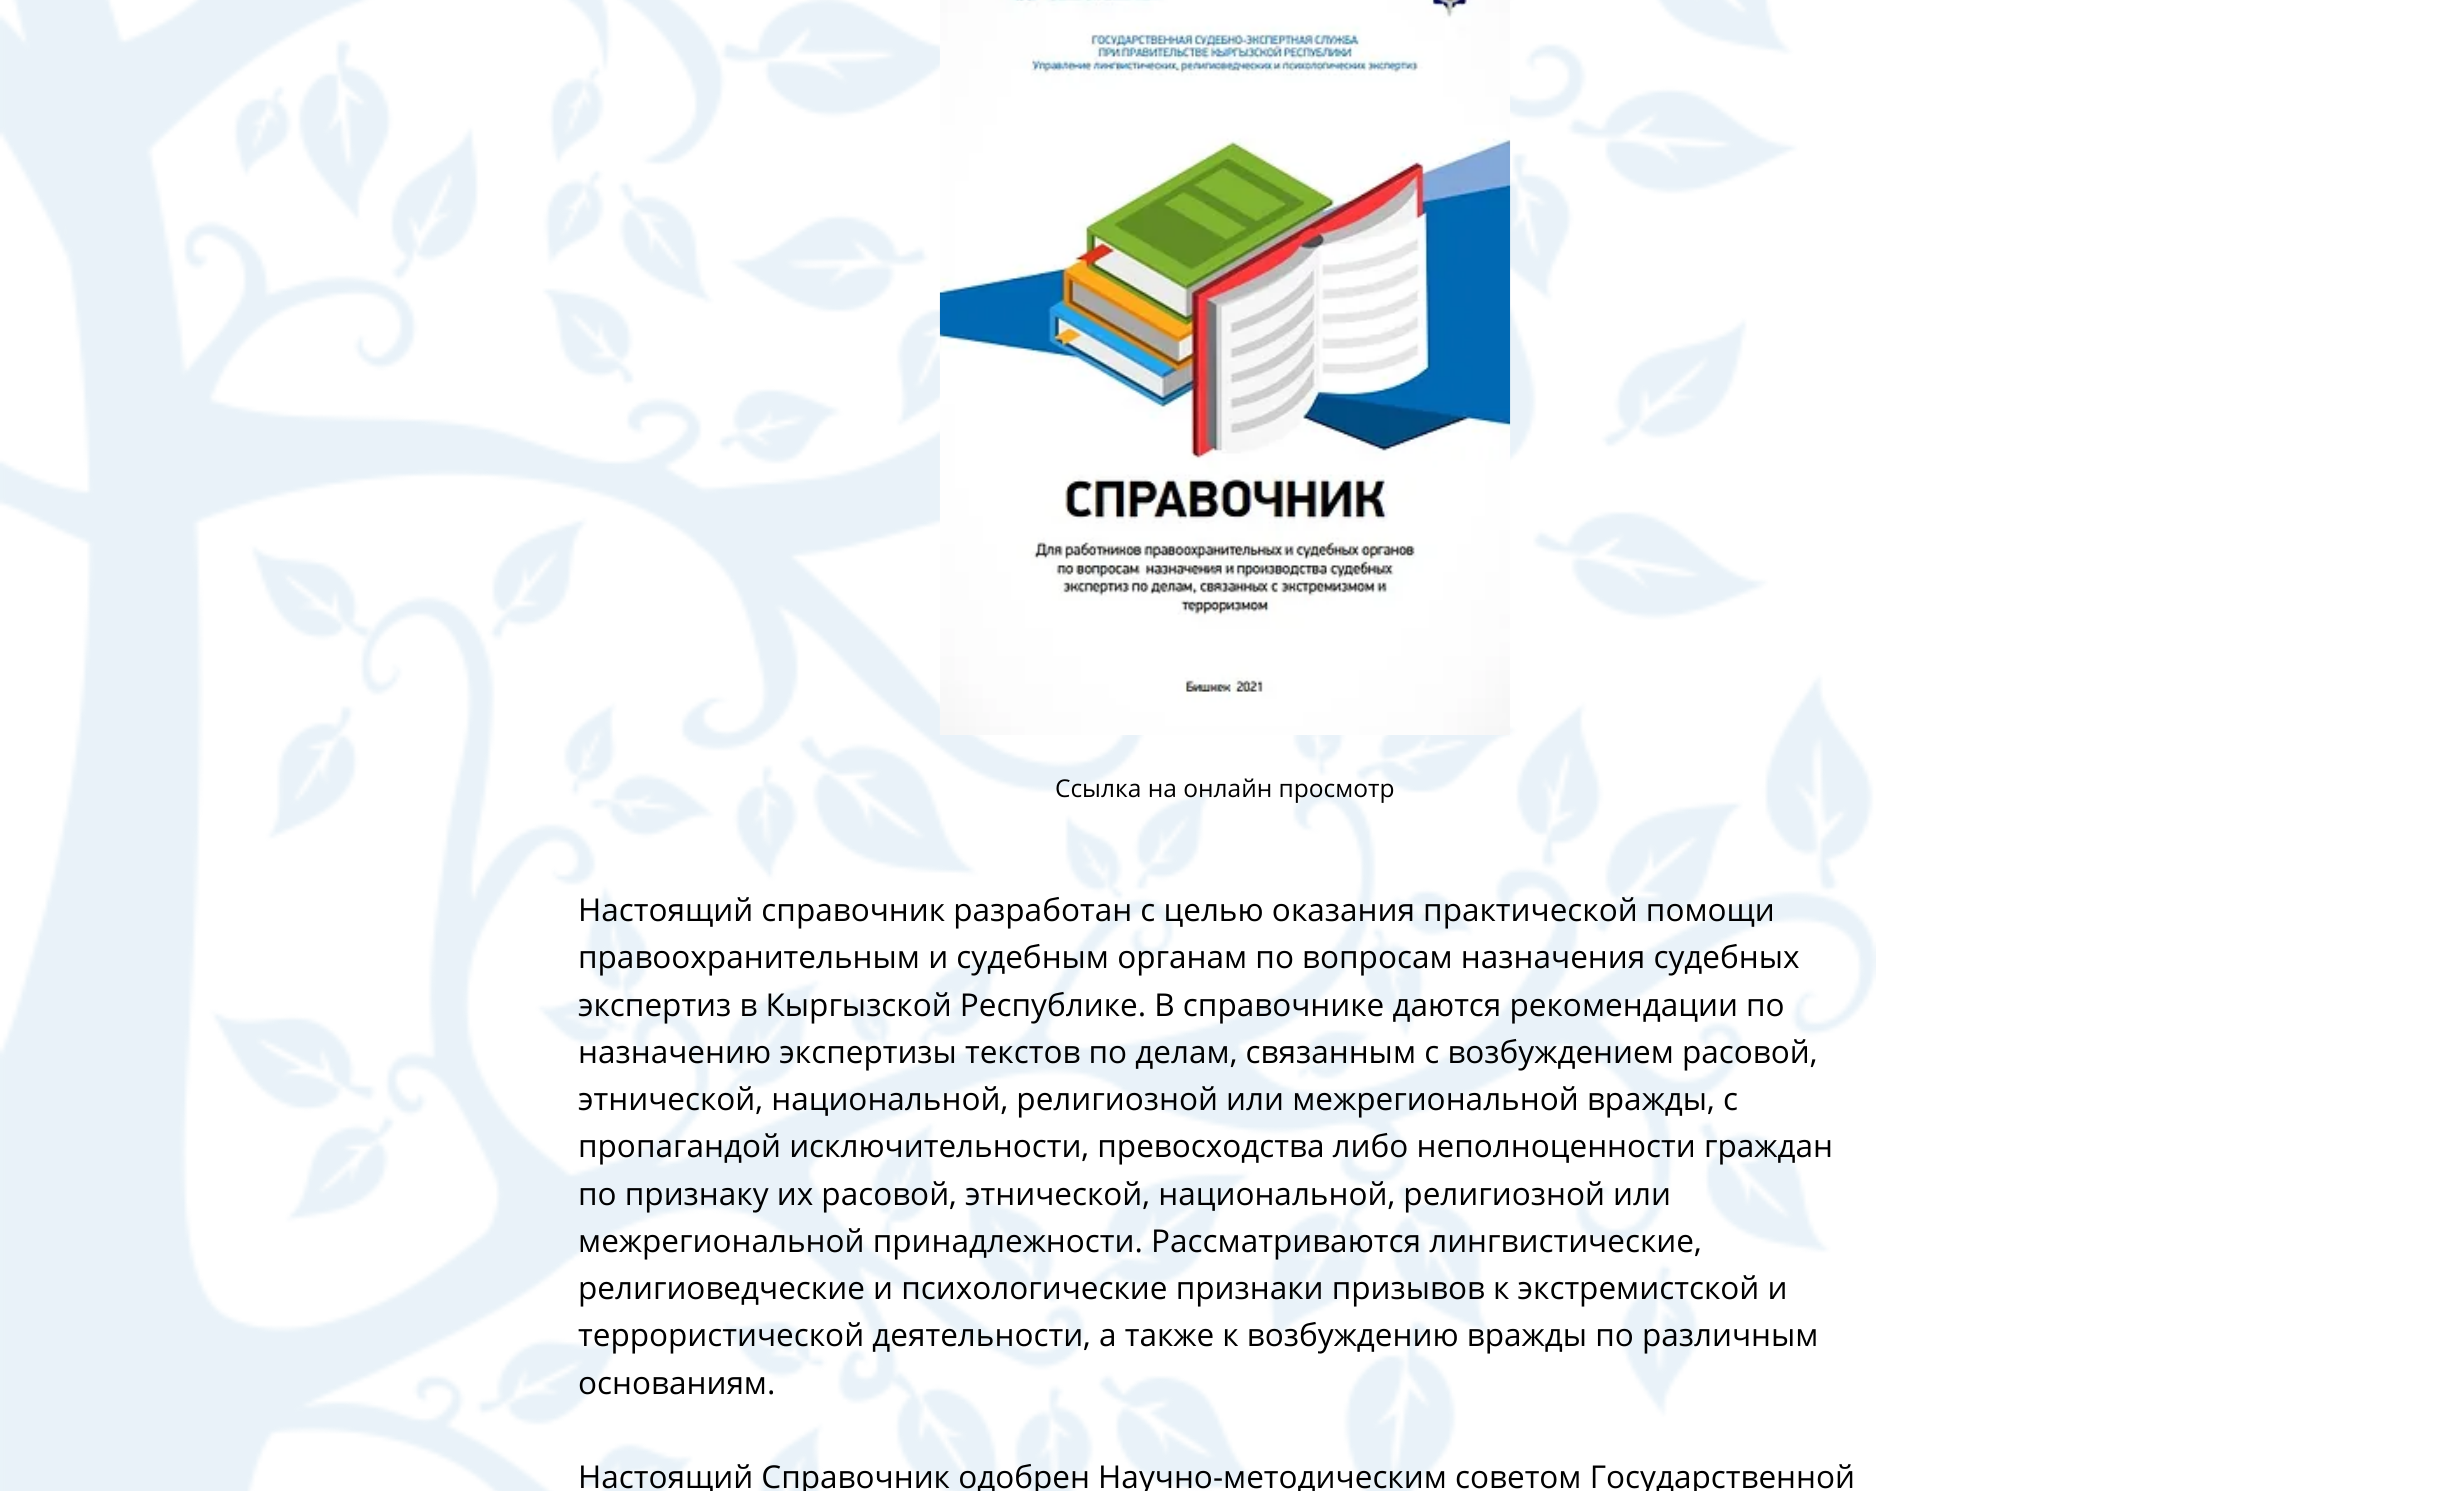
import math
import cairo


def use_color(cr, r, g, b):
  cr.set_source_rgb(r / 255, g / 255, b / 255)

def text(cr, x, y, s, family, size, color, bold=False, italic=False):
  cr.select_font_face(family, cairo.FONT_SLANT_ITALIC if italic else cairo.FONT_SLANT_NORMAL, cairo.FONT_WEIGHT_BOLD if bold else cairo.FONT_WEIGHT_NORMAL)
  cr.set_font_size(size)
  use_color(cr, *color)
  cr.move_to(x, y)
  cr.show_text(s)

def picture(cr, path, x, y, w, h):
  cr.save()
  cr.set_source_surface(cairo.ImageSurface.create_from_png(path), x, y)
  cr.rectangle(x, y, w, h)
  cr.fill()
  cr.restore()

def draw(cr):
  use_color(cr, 255, 255, 255)
  cr.paint()
  picture(cr, "img_01.png", 0, 0, 1876, 1491)
  picture(cr, "img_02.png", 939, 0, 572, 735)
  text(cr, 1055, 797, "Ссылка на онлайн просмотр", "Open Sans", 24.5, (0, 0, 0))
  text(cr, 578, 921, "Настоящий справочник разработан с целью оказания практической помощи", "Open Sans", 31.5, (0, 0, 0))
  text(cr, 578, 968, "правоохранительным и судебным органам по вопросам назначения судебных", "Open Sans", 31.5, (0, 0, 0))
  text(cr, 578, 1016, "экспертиз в Кыргызской Республике. В справочнике даются рекомендации по", "Open Sans", 31.5, (0, 0, 0))
  text(cr, 578, 1063, "назначению экспертизы текстов по делам, связанным с возбуждением расовой,", "Open Sans", 31.5, (0, 0, 0))
  text(cr, 578, 1110, "этнической, национальной, религиозной или межрегиональной вражды, с", "Open Sans", 31.5, (0, 0, 0))
  text(cr, 578, 1157, "пропагандой исключительности, превосходства либо неполноценности граждан", "Open Sans", 31.5, (0, 0, 0))
  text(cr, 578, 1205, "по признаку их расовой, этнической, национальной, религиозной или", "Open Sans", 31.5, (0, 0, 0))
  text(cr, 578, 1252, "межрегиональной принадлежности. Рассматриваются лингвистические,", "Open Sans", 31.5, (0, 0, 0))
  text(cr, 578, 1299, "религиоведческие и психологические признаки призывов к экстремистской и", "Open Sans", 31.5, (0, 0, 0))
  text(cr, 578, 1346, "террористической деятельности, а также к возбуждению вражды по различным", "Open Sans", 31.5, (0, 0, 0))
  text(cr, 578, 1394, "основаниям.", "Open Sans", 31.5, (0, 0, 0))
  text(cr, 578, 1488, "Настоящий Справочник одобрен Научно-методическим советом Государственной", "Open Sans", 31.5, (0, 0, 0))


surface = cairo.ImageSurface(cairo.FORMAT_RGB24, 2449, 1491)
cr = cairo.Context(surface)
options = cairo.FontOptions()
options.set_hint_metrics(cairo.HINT_METRICS_OFF)
options.set_hint_style(cairo.HINT_STYLE_NONE)
cr.set_font_options(options)
cr.set_miter_limit(4)
draw(cr)
surface.write_to_png("out.png")
